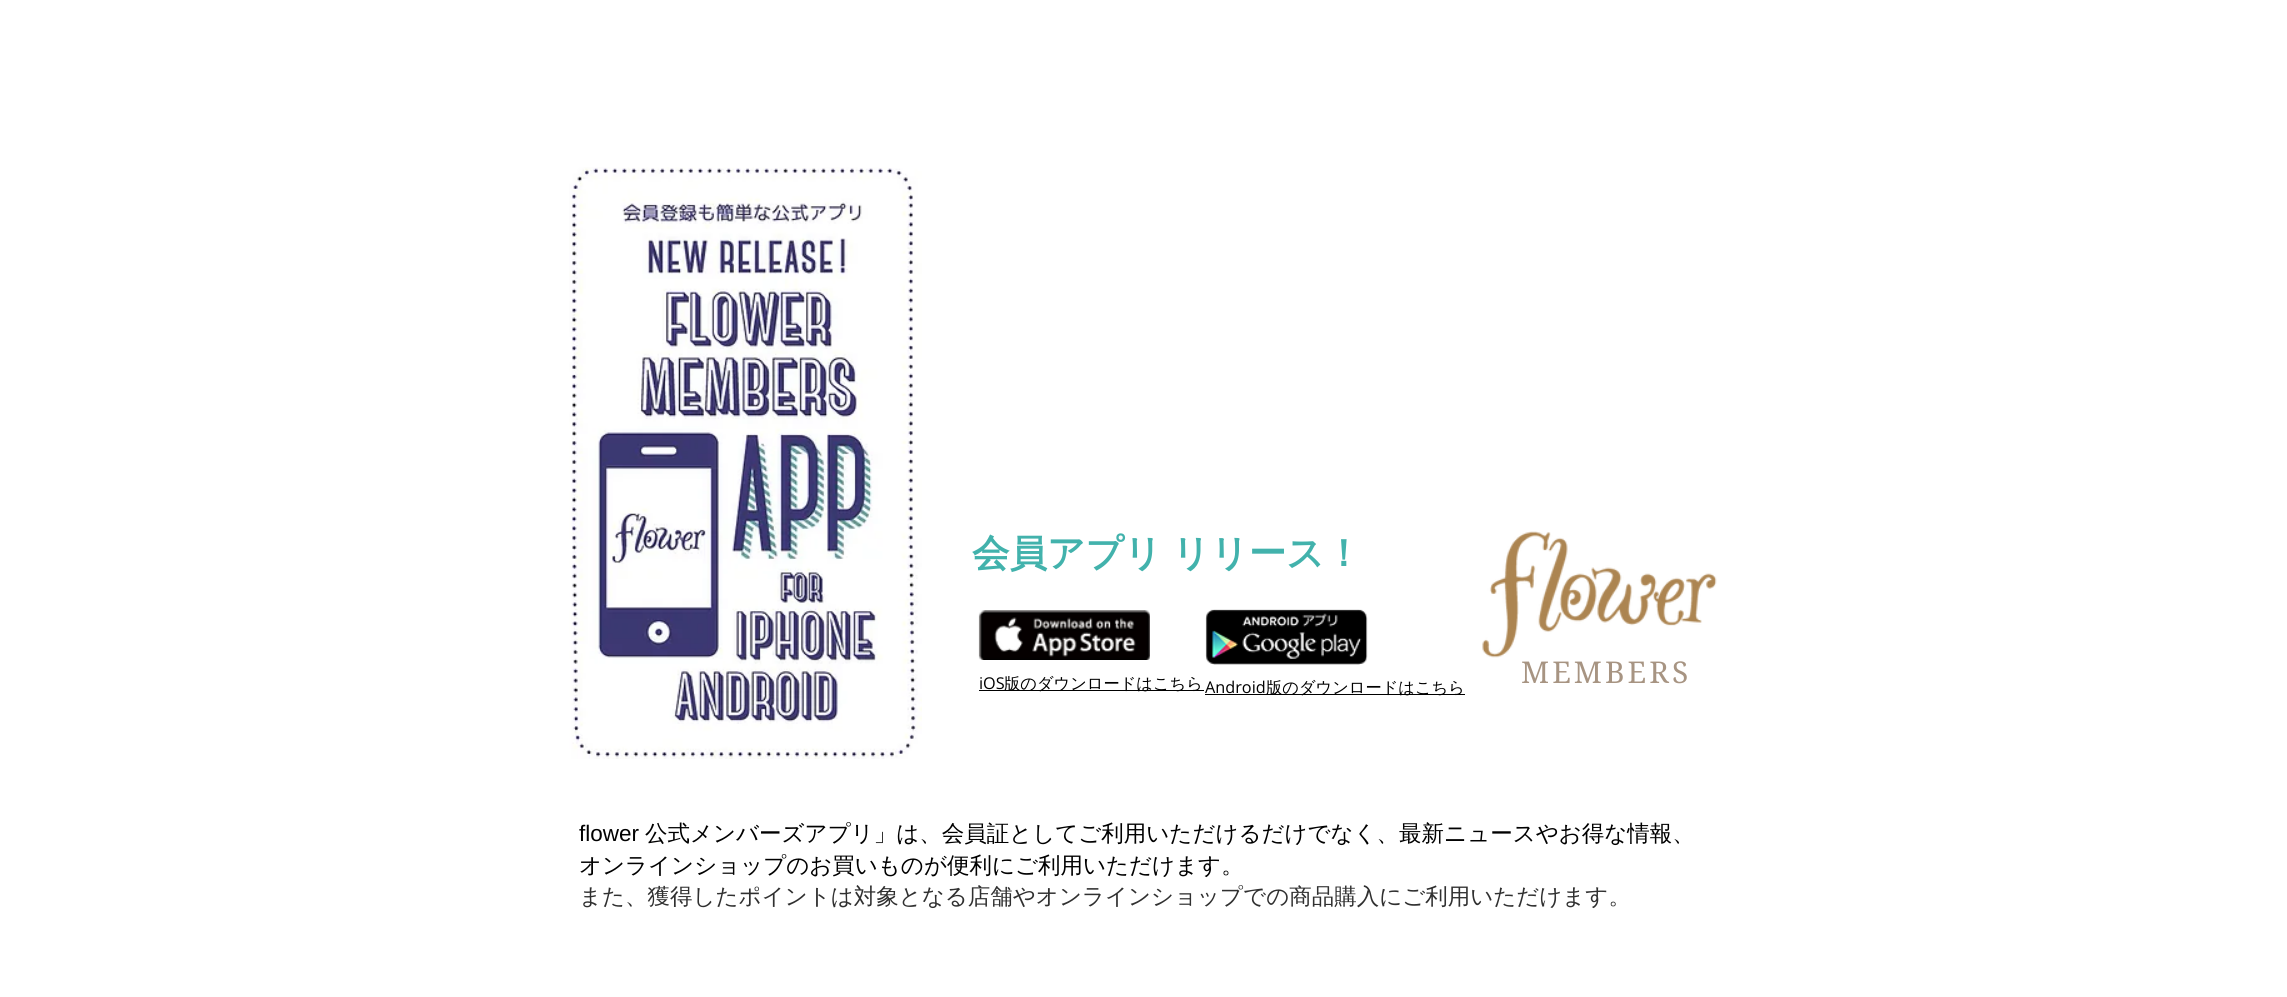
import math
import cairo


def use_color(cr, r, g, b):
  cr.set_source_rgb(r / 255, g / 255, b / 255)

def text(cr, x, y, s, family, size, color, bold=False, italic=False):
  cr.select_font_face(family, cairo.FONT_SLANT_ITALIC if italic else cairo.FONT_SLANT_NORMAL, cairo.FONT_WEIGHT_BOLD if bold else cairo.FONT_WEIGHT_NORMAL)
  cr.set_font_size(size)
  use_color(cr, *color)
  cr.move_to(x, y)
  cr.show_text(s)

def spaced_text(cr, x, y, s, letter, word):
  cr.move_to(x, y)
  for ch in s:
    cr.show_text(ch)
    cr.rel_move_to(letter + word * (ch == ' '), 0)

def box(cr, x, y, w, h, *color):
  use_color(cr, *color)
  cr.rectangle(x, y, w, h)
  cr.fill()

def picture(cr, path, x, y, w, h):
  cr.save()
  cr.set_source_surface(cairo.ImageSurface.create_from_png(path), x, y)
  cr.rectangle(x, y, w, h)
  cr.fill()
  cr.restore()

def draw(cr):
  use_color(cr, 255, 255, 255)
  cr.paint()
  picture(cr, "img_01.png", 569, 167, 353, 592)
  picture(cr, "img_02.png", 1482, 531, 235, 127)
  picture(cr, "img_03.png", 978, 610, 172, 50)
  picture(cr, "img_04.png", 1205, 609, 163, 56)
  box(cr, 979, 690, 225, 1, 0, 0, 0)
  box(cr, 1205, 694, 260, 1, 0, 0, 0)
  text(cr, 972, 566, "会員アプリ", "WenQuanYi Zen Hei", 37.5, (66, 178, 172), bold=True)
  text(cr, 1172, 566, "リリース！", "WenQuanYi Zen Hei", 37.5, (66, 178, 172), bold=True)
  text(cr, 979, 689, "iOS", "Open Sans", 16.25, (0, 0, 0))
  text(cr, 1004, 689, "版のダウンロードはこちら", "WenQuanYi Zen Hei Medium", 16.25, (0, 0, 0))
  text(cr, 1205, 693, "Android", "Open Sans", 16.25, (0, 0, 0))
  text(cr, 1266, 693, "版のダウンロードはこちら", "WenQuanYi Zen Hei Medium", 16.25, (0, 0, 0))
  cr.select_font_face("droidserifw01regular")
  cr.set_font_size(30)
  use_color(cr, 167, 148, 130)
  spaced_text(cr, 1521, 683, "MEMBERS", 3, 0)
  text(cr, 579, 841, "flower", "Liberation Sans", 22.5, (0, 0, 0))
  text(cr, 645, 841, "公式メンバーズアプリ」は、会員証としてご利用いただけるだけでなく、最新ニュースやお得な情報、", "WenQuanYi Zen Hei Medium", 22.5, (0, 0, 0))
  text(cr, 579, 873, "オンラインショップのお買いものが便利にご利用いただけます。", "WenQuanYi Zen Hei Medium", 22.5, (0, 0, 0))
  text(cr, 579, 904, "また、獲得したポイントは対象となる店舗やオンラインショップでの商品購入にご利用いただけます。", "WenQuanYi Zen Hei Medium", 22.5, (48, 48, 48))


surface = cairo.ImageSurface(cairo.FORMAT_RGB24, 2287, 997)
cr = cairo.Context(surface)
options = cairo.FontOptions()
options.set_hint_metrics(cairo.HINT_METRICS_OFF)
options.set_hint_style(cairo.HINT_STYLE_NONE)
cr.set_font_options(options)
cr.set_miter_limit(4)
draw(cr)
surface.write_to_png("out.png")
